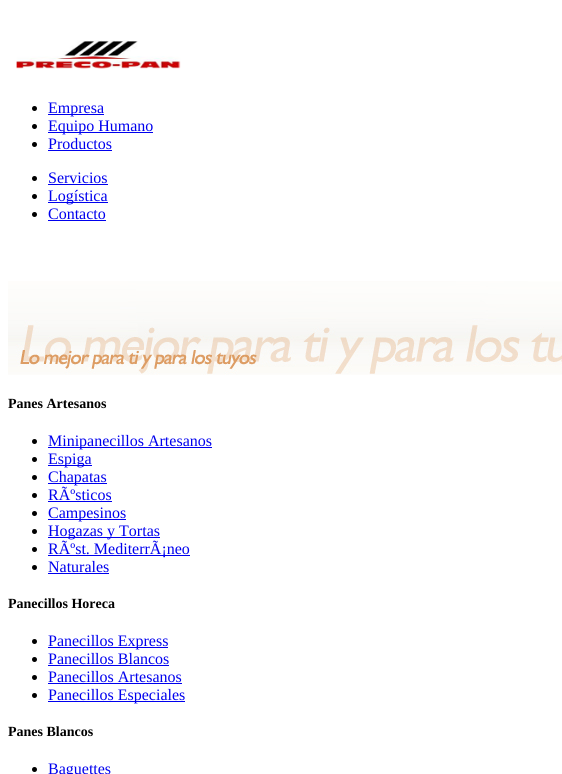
import math
import cairo


def use_color(cr, r, g, b):
  cr.set_source_rgb(r / 255, g / 255, b / 255)

def text(cr, x, y, s, family, size, color, bold=False, italic=False):
  cr.select_font_face(family, cairo.FONT_SLANT_ITALIC if italic else cairo.FONT_SLANT_NORMAL, cairo.FONT_WEIGHT_BOLD if bold else cairo.FONT_WEIGHT_NORMAL)
  cr.set_font_size(size)
  use_color(cr, *color)
  cr.move_to(x, y)
  cr.show_text(s)

def box(cr, x, y, w, h, *color):
  use_color(cr, *color)
  cr.rectangle(x, y, w, h)
  cr.fill()

def picture(cr, path, x, y, w, h):
  cr.save()
  cr.set_source_surface(cairo.ImageSurface.create_from_png(path), x, y)
  cr.rectangle(x, y, w, h)
  cr.fill()
  cr.restore()

def draw(cr):
  use_color(cr, 255, 255, 255)
  cr.paint()
  picture(cr, "img_01.png", 16, 40, 165, 29)
  use_color(cr, 0, 0, 0)
  cr.arc(34.5, 108.5, 2.5, 0, 2 * math.pi)
  cr.fill()
  box(cr, 48, 114, 56, 1, 0, 0, 238)
  use_color(cr, 0, 0, 0)
  cr.arc(34.5, 126.5, 2.5, 0, 2 * math.pi)
  cr.fill()
  box(cr, 48, 132, 105, 1, 0, 0, 238)
  use_color(cr, 0, 0, 0)
  cr.arc(34.5, 144.5, 2.5, 0, 2 * math.pi)
  cr.fill()
  box(cr, 48, 150, 64, 1, 0, 0, 238)
  use_color(cr, 0, 0, 0)
  cr.arc(34.5, 178.5, 2.5, 0, 2 * math.pi)
  cr.fill()
  box(cr, 48, 184, 60, 1, 0, 0, 238)
  use_color(cr, 0, 0, 0)
  cr.arc(34.5, 196.5, 2.5, 0, 2 * math.pi)
  cr.fill()
  box(cr, 48, 202, 60, 1, 0, 0, 238)
  use_color(cr, 0, 0, 0)
  cr.arc(34.5, 214.5, 2.5, 0, 2 * math.pi)
  cr.fill()
  box(cr, 48, 220, 58, 1, 0, 0, 238)
  picture(cr, "img_02.png", 8, 281, 554, 94)
  use_color(cr, 0, 0, 0)
  cr.arc(34.5, 441.5, 2.5, 0, 2 * math.pi)
  cr.fill()
  box(cr, 48, 447, 164, 1, 0, 0, 238)
  use_color(cr, 0, 0, 0)
  cr.arc(34.5, 459.5, 2.5, 0, 2 * math.pi)
  cr.fill()
  box(cr, 48, 465, 44, 1, 0, 0, 238)
  use_color(cr, 0, 0, 0)
  cr.arc(34.5, 477.5, 2.5, 0, 2 * math.pi)
  cr.fill()
  box(cr, 48, 483, 59, 1, 0, 0, 238)
  use_color(cr, 0, 0, 0)
  cr.arc(34.5, 495.5, 2.5, 0, 2 * math.pi)
  cr.fill()
  box(cr, 48, 501, 64, 1, 0, 0, 238)
  use_color(cr, 0, 0, 0)
  cr.arc(34.5, 513.5, 2.5, 0, 2 * math.pi)
  cr.fill()
  box(cr, 48, 519, 78, 1, 0, 0, 238)
  use_color(cr, 0, 0, 0)
  cr.arc(34.5, 531.5, 2.5, 0, 2 * math.pi)
  cr.fill()
  box(cr, 48, 537, 112, 1, 0, 0, 238)
  use_color(cr, 0, 0, 0)
  cr.arc(34.5, 549.5, 2.5, 0, 2 * math.pi)
  cr.fill()
  box(cr, 48, 555, 142, 1, 0, 0, 238)
  use_color(cr, 0, 0, 0)
  cr.arc(34.5, 567.5, 2.5, 0, 2 * math.pi)
  cr.fill()
  box(cr, 48, 573, 61, 1, 0, 0, 238)
  use_color(cr, 0, 0, 0)
  cr.arc(34.5, 641.5, 2.5, 0, 2 * math.pi)
  cr.fill()
  box(cr, 48, 647, 120, 1, 0, 0, 238)
  use_color(cr, 0, 0, 0)
  cr.arc(34.5, 659.5, 2.5, 0, 2 * math.pi)
  cr.fill()
  box(cr, 48, 665, 121, 1, 0, 0, 238)
  use_color(cr, 0, 0, 0)
  cr.arc(34.5, 677.5, 2.5, 0, 2 * math.pi)
  cr.fill()
  box(cr, 48, 683, 134, 1, 0, 0, 238)
  use_color(cr, 0, 0, 0)
  cr.arc(34.5, 695.5, 2.5, 0, 2 * math.pi)
  cr.fill()
  box(cr, 48, 701, 137, 1, 0, 0, 238)
  use_color(cr, 0, 0, 0)
  cr.arc(34.5, 769.5, 2.5, 0, 2 * math.pi)
  cr.fill()
  text(cr, 48, 113, "Empresa", "Liberation Serif", 16, (0, 0, 238))
  text(cr, 48, 131, "Equipo Humano", "Liberation Serif", 16, (0, 0, 238))
  text(cr, 48, 149, "Productos", "Liberation Serif", 16, (0, 0, 238))
  text(cr, 48, 183, "Servicios", "Liberation Serif", 16, (0, 0, 238))
  text(cr, 48, 201, "Logística", "Liberation Serif", 16, (0, 0, 238))
  text(cr, 48, 219, "Contacto", "Liberation Serif", 16, (0, 0, 238))
  text(cr, 8, 408, "Panes Artesanos", "Liberation Serif", 14, (0, 0, 0), bold=True)
  text(cr, 48, 446, "Minipanecillos Artesanos", "Liberation Serif", 16, (0, 0, 238))
  text(cr, 48, 464, "Espiga", "Liberation Serif", 16, (0, 0, 238))
  text(cr, 48, 482, "Chapatas", "Liberation Serif", 16, (0, 0, 238))
  text(cr, 48, 500, "RÃºsticos", "Liberation Serif", 16, (0, 0, 238))
  text(cr, 48, 518, "Campesinos", "Liberation Serif", 16, (0, 0, 238))
  text(cr, 48, 536, "Hogazas y Tortas", "Liberation Serif", 16, (0, 0, 238))
  text(cr, 48, 554, "RÃºst. MediterrÃ¡neo", "Liberation Serif", 16, (0, 0, 238))
  text(cr, 48, 572, "Naturales", "Liberation Serif", 16, (0, 0, 238))
  text(cr, 8, 608, "Panecillos Horeca", "Liberation Serif", 14, (0, 0, 0), bold=True)
  text(cr, 48, 646, "Panecillos Express", "Liberation Serif", 16, (0, 0, 238))
  text(cr, 48, 664, "Panecillos Blancos", "Liberation Serif", 16, (0, 0, 238))
  text(cr, 48, 682, "Panecillos Artesanos", "Liberation Serif", 16, (0, 0, 238))
  text(cr, 48, 700, "Panecillos Especiales", "Liberation Serif", 16, (0, 0, 238))
  text(cr, 8, 736, "Panes Blancos", "Liberation Serif", 14, (0, 0, 0), bold=True)
  text(cr, 48, 774, "Baguettes", "Liberation Serif", 16, (0, 0, 238))


surface = cairo.ImageSurface(cairo.FORMAT_RGB24, 562, 774)
cr = cairo.Context(surface)
options = cairo.FontOptions()
options.set_hint_metrics(cairo.HINT_METRICS_OFF)
options.set_hint_style(cairo.HINT_STYLE_NONE)
cr.set_font_options(options)
cr.set_miter_limit(4)
draw(cr)
surface.write_to_png("out.png")
